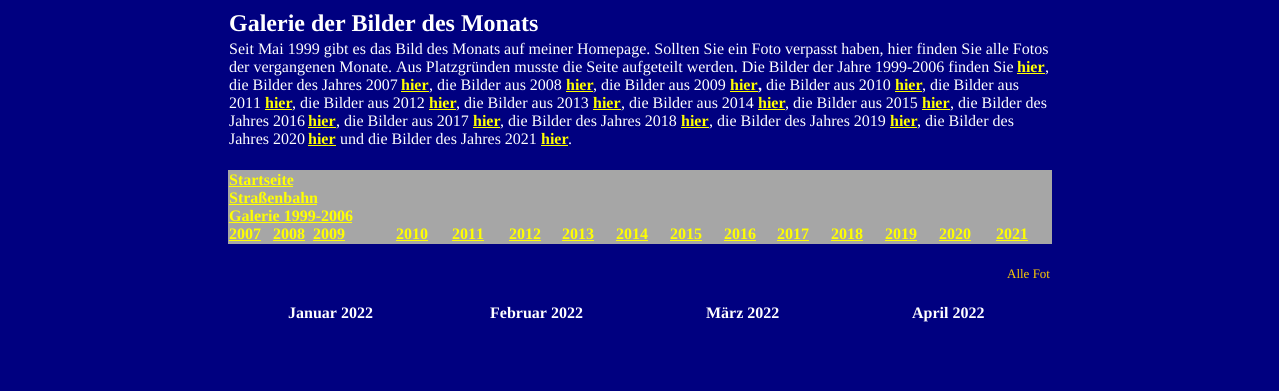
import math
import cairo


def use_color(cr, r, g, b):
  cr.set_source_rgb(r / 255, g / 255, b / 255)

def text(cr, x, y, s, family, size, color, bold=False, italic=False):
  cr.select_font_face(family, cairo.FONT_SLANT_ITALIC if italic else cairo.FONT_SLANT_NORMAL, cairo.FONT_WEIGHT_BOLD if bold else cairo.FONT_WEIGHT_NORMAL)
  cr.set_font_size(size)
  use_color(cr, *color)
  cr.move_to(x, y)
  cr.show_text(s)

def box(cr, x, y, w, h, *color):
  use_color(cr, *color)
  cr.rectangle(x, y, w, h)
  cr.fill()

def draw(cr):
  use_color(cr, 0, 0, 128)
  cr.paint()
  box(cr, 1017, 73, 28, 1, 255, 255, 0)
  box(cr, 401, 91, 28, 1, 255, 255, 0)
  box(cr, 566, 91, 27, 1, 255, 255, 0)
  box(cr, 730, 91, 28, 1, 255, 255, 0)
  box(cr, 895, 91, 27, 1, 255, 255, 0)
  box(cr, 265, 109, 27, 1, 255, 255, 0)
  box(cr, 429, 109, 27, 1, 255, 255, 0)
  box(cr, 593, 109, 28, 1, 255, 255, 0)
  box(cr, 758, 109, 27, 1, 255, 255, 0)
  box(cr, 922, 109, 28, 1, 255, 255, 0)
  box(cr, 308, 127, 28, 1, 255, 255, 0)
  box(cr, 473, 127, 27, 1, 255, 255, 0)
  box(cr, 681, 127, 28, 1, 255, 255, 0)
  box(cr, 890, 127, 27, 1, 255, 255, 0)
  box(cr, 308, 145, 28, 1, 255, 255, 0)
  box(cr, 541, 145, 27, 1, 255, 255, 0)
  box(cr, 228, 170, 824, 74, 166, 166, 166)
  box(cr, 229, 186, 64, 1, 255, 255, 0)
  box(cr, 229, 204, 88, 1, 255, 255, 0)
  box(cr, 229, 222, 123, 1, 255, 255, 0)
  box(cr, 229, 240, 32, 1, 255, 255, 0)
  box(cr, 273, 240, 32, 1, 255, 255, 0)
  box(cr, 313, 240, 32, 1, 255, 255, 0)
  box(cr, 396, 240, 32, 1, 255, 255, 0)
  box(cr, 452, 240, 32, 1, 255, 255, 0)
  box(cr, 509, 240, 32, 1, 255, 255, 0)
  box(cr, 562, 240, 32, 1, 255, 255, 0)
  box(cr, 616, 240, 32, 1, 255, 255, 0)
  box(cr, 670, 240, 32, 1, 255, 255, 0)
  box(cr, 724, 240, 32, 1, 255, 255, 0)
  box(cr, 777, 240, 32, 1, 255, 255, 0)
  box(cr, 831, 240, 32, 1, 255, 255, 0)
  box(cr, 885, 240, 32, 1, 255, 255, 0)
  box(cr, 939, 240, 32, 1, 255, 255, 0)
  box(cr, 996, 240, 32, 1, 255, 255, 0)
  text(cr, 229, 31, "Galerie der Bilder des Monats", "Liberation Serif", 24, (255, 255, 255), bold=True)
  text(cr, 229, 54, "Seit Mai 1999 gibt es das Bild des Monats auf meiner Homepage. Sollten Sie ein Foto verpasst haben, hier finden Sie alle Fotos", "Liberation Serif", 16, (255, 255, 255))
  text(cr, 229, 72, "der vergangenen Monate. Aus Platzgründen musste die Seite aufgeteilt werden. Die Bilder der Jahre 1999-2006 finden Sie", "Liberation Serif", 16, (255, 255, 255))
  text(cr, 1017, 72, "hier", "Liberation Serif", 16, (255, 255, 0), bold=True)
  text(cr, 1045, 72, ",", "Liberation Serif", 16, (255, 255, 255))
  text(cr, 229, 90, "die Bilder des Jahres 2007", "Liberation Serif", 16, (255, 255, 255))
  text(cr, 401, 90, "hier", "Liberation Serif", 16, (255, 255, 0), bold=True)
  text(cr, 429, 90, ", die Bilder aus 2008", "Liberation Serif", 16, (255, 255, 255))
  text(cr, 566, 90, "hier", "Liberation Serif", 16, (255, 255, 0), bold=True)
  text(cr, 593, 90, ", die Bilder aus 2009", "Liberation Serif", 16, (255, 255, 255))
  text(cr, 730, 90, "hier", "Liberation Serif", 16, (255, 255, 0), bold=True)
  text(cr, 758, 90, ",", "Liberation Serif", 16, (255, 255, 255), bold=True)
  text(cr, 766, 90, "die Bilder aus 2010", "Liberation Serif", 16, (255, 255, 255))
  text(cr, 895, 90, "hier", "Liberation Serif", 16, (255, 255, 0), bold=True)
  text(cr, 922, 90, ", die Bilder aus", "Liberation Serif", 16, (255, 255, 255))
  text(cr, 229, 108, "2011", "Liberation Serif", 16, (255, 255, 255))
  text(cr, 265, 108, "hier", "Liberation Serif", 16, (255, 255, 0), bold=True)
  text(cr, 292, 108, ", die Bilder aus 2012", "Liberation Serif", 16, (255, 255, 255))
  text(cr, 429, 108, "hier", "Liberation Serif", 16, (255, 255, 0), bold=True)
  text(cr, 456, 108, ", die Bilder aus 2013", "Liberation Serif", 16, (255, 255, 255))
  text(cr, 593, 108, "hier", "Liberation Serif", 16, (255, 255, 0), bold=True)
  text(cr, 621, 108, ", die Bilder aus 2014", "Liberation Serif", 16, (255, 255, 255))
  text(cr, 758, 108, "hier", "Liberation Serif", 16, (255, 255, 0), bold=True)
  text(cr, 785, 108, ", die Bilder aus 2015", "Liberation Serif", 16, (255, 255, 255))
  text(cr, 922, 108, "hier", "Liberation Serif", 16, (255, 255, 0), bold=True)
  text(cr, 950, 108, ", die Bilder des", "Liberation Serif", 16, (255, 255, 255))
  text(cr, 229, 126, "Jahres 2016", "Liberation Serif", 16, (255, 255, 255))
  text(cr, 308, 126, "hier", "Liberation Serif", 16, (255, 255, 0), bold=True)
  text(cr, 336, 126, ", die Bilder aus 2017", "Liberation Serif", 16, (255, 255, 255))
  text(cr, 473, 126, "hier", "Liberation Serif", 16, (255, 255, 0), bold=True)
  text(cr, 500, 126, ", die Bilder des Jahres 2018", "Liberation Serif", 16, (255, 255, 255))
  text(cr, 681, 126, "hier", "Liberation Serif", 16, (255, 255, 0), bold=True)
  text(cr, 709, 126, ", die Bilder des Jahres 2019", "Liberation Serif", 16, (255, 255, 255))
  text(cr, 890, 126, "hier", "Liberation Serif", 16, (255, 255, 0), bold=True)
  text(cr, 917, 126, ", die Bilder des", "Liberation Serif", 16, (255, 255, 255))
  text(cr, 229, 144, "Jahres 2020", "Liberation Serif", 16, (255, 255, 255))
  text(cr, 308, 144, "hier", "Liberation Serif", 16, (255, 255, 0), bold=True)
  text(cr, 340, 144, "und die Bilder des Jahres 2021", "Liberation Serif", 16, (255, 255, 255))
  text(cr, 541, 144, "hier", "Liberation Serif", 16, (255, 255, 0), bold=True)
  text(cr, 568, 144, ".", "Liberation Serif", 16, (255, 255, 255))
  text(cr, 229, 185, "Startseite", "Liberation Serif", 16, (255, 255, 0), bold=True)
  text(cr, 229, 203, "Straßenbahn", "Liberation Serif", 16, (255, 255, 0), bold=True)
  text(cr, 229, 221, "Galerie 1999-2006", "Liberation Serif", 16, (255, 255, 0), bold=True)
  text(cr, 229, 239, "2007", "Liberation Serif", 16, (255, 255, 0), bold=True)
  text(cr, 273, 239, "2008", "Liberation Serif", 16, (255, 255, 0), bold=True)
  text(cr, 313, 239, "2009", "Liberation Serif", 16, (255, 255, 0), bold=True)
  text(cr, 396, 239, "2010", "Liberation Serif", 16, (255, 255, 0), bold=True)
  text(cr, 452, 239, "2011", "Liberation Serif", 16, (255, 255, 0), bold=True)
  text(cr, 509, 239, "2012", "Liberation Serif", 16, (255, 255, 0), bold=True)
  text(cr, 562, 239, "2013", "Liberation Serif", 16, (255, 255, 0), bold=True)
  text(cr, 616, 239, "2014", "Liberation Serif", 16, (255, 255, 0), bold=True)
  text(cr, 670, 239, "2015", "Liberation Serif", 16, (255, 255, 0), bold=True)
  text(cr, 724, 239, "2016", "Liberation Serif", 16, (255, 255, 0), bold=True)
  text(cr, 777, 239, "2017", "Liberation Serif", 16, (255, 255, 0), bold=True)
  text(cr, 831, 239, "2018", "Liberation Serif", 16, (255, 255, 0), bold=True)
  text(cr, 885, 239, "2019", "Liberation Serif", 16, (255, 255, 0), bold=True)
  text(cr, 939, 239, "2020", "Liberation Serif", 16, (255, 255, 0), bold=True)
  text(cr, 996, 239, "2021", "Liberation Serif", 16, (255, 255, 0), bold=True)
  text(cr, 1007, 278, "Alle Fot", "Liberation Serif", 13, (255, 204, 0))
  text(cr, 288, 318, "Januar 2022", "Liberation Serif", 16, (255, 255, 255), bold=True)
  text(cr, 490, 318, "Februar 2022", "Liberation Serif", 16, (255, 255, 255), bold=True)
  text(cr, 706, 318, "März 2022", "Liberation Serif", 16, (255, 255, 255), bold=True)
  text(cr, 912, 318, "April 2022", "Liberation Serif", 16, (255, 255, 255), bold=True)


surface = cairo.ImageSurface(cairo.FORMAT_RGB24, 1279, 391)
cr = cairo.Context(surface)
options = cairo.FontOptions()
options.set_hint_metrics(cairo.HINT_METRICS_OFF)
options.set_hint_style(cairo.HINT_STYLE_NONE)
cr.set_font_options(options)
cr.set_miter_limit(4)
draw(cr)
surface.write_to_png("out.png")
